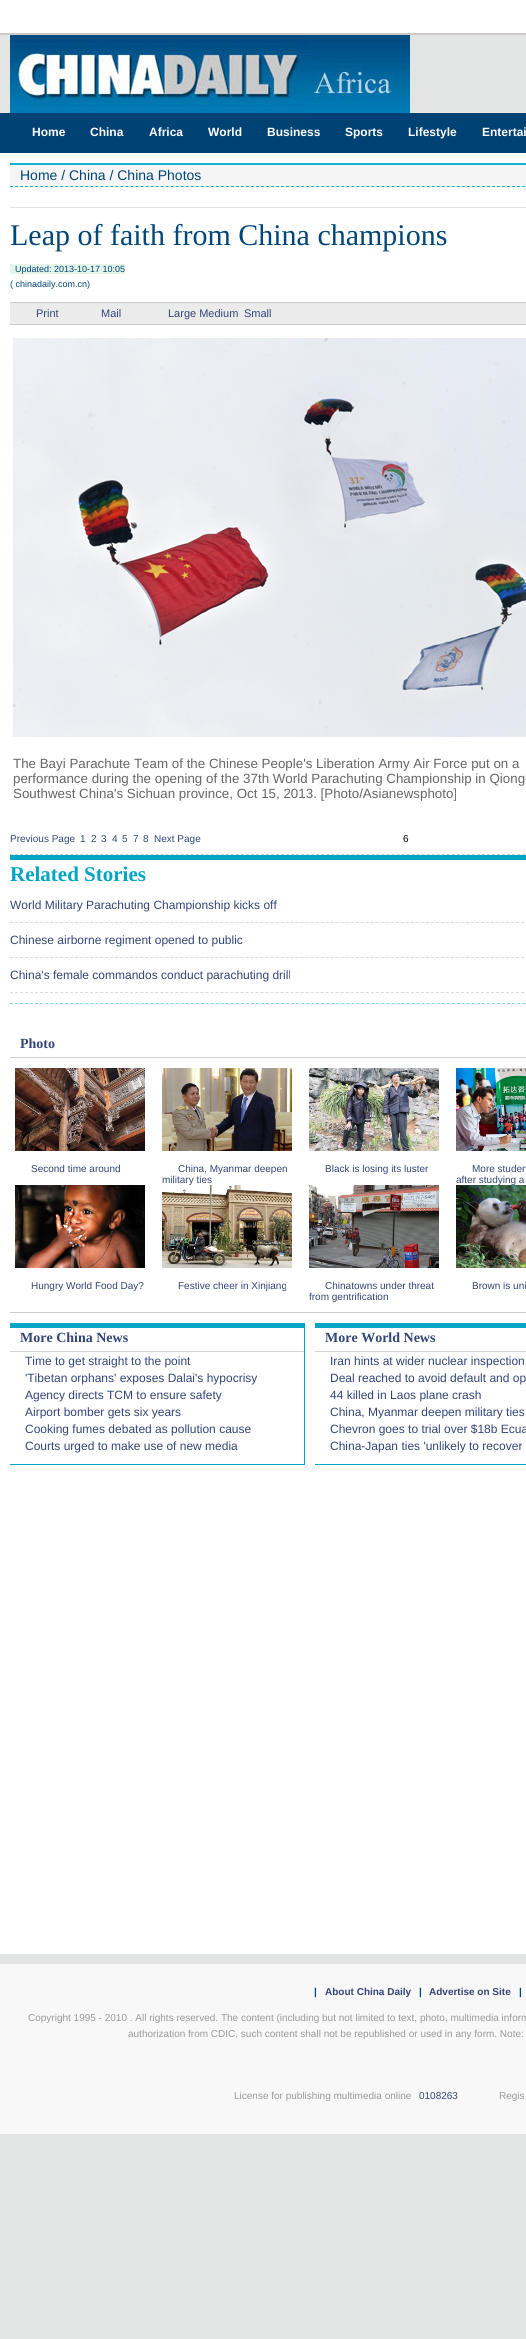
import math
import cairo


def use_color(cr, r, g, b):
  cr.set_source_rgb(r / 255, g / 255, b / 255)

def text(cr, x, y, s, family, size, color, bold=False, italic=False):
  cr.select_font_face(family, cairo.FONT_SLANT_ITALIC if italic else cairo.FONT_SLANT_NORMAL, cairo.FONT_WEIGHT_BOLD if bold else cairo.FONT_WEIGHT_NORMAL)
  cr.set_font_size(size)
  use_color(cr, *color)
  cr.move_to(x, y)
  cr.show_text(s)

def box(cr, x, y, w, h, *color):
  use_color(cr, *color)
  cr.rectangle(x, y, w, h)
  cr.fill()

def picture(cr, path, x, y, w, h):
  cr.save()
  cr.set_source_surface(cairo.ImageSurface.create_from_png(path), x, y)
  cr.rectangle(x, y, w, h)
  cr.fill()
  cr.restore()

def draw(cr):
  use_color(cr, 227, 228, 228)
  cr.paint()
  box(cr, 0, 0, 526, 33, 255, 255, 255)
  box(cr, 0, 33, 526, 2, 205, 201, 198)
  picture(cr, "img_01.png", 10, 35, 400, 78)
  box(cr, 0, 113, 526, 40, 0, 66, 115)
  box(cr, 0, 153, 526, 1801, 255, 255, 255)
  box(cr, 10, 165, 516, 22, 245, 245, 245)
  box(cr, 10, 163, 516, 2, 19, 179, 211)
  cr.new_path()
  cr.move_to(10, 186.5)
  cr.line_to(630, 186.5)
  cr.set_line_width(1)
  cr.set_dash([3, 2.02])
  cr.stroke()
  box(cr, 10, 207, 516, 1, 227, 228, 228)
  box(cr, 10, 264, 115, 10, 228, 244, 233)
  box(cr, 10, 303, 516, 21, 235, 235, 235)
  box(cr, 10, 302, 516, 1, 204, 204, 204)
  box(cr, 10, 324, 516, 1, 204, 204, 204)
  picture(cr, "img_02.png", 13, 338, 513, 399)
  cr.new_path()
  cr.move_to(10, 854.5)
  cr.line_to(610, 854.5)
  cr.stroke()
  cr.new_path()
  cr.move_to(10, 1003.5)
  cr.line_to(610, 1003.5)
  use_color(cr, 137, 217, 233)
  cr.stroke()
  box(cr, 10, 855, 516, 5, 0, 166, 196)
  cr.new_path()
  cr.move_to(10, 922.5)
  cr.line_to(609, 922.5)
  use_color(cr, 219, 219, 219)
  cr.set_dash([3, 2.01])
  cr.stroke()
  cr.new_path()
  cr.move_to(10, 957.5)
  cr.line_to(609, 957.5)
  cr.stroke()
  cr.new_path()
  cr.move_to(10, 992.5)
  cr.line_to(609, 992.5)
  cr.stroke()
  box(cr, 10, 1312, 516, 1, 204, 204, 204)
  box(cr, 10, 1057, 516, 1, 210, 210, 210)
  picture(cr, "img_03.png", 15, 1068, 130, 83)
  picture(cr, "img_04.png", 162, 1068, 130, 83)
  picture(cr, "img_05.png", 309, 1068, 130, 83)
  picture(cr, "img_06.png", 456, 1068, 70, 83)
  picture(cr, "img_07.png", 15, 1185, 130, 83)
  picture(cr, "img_08.png", 162, 1185, 130, 83)
  picture(cr, "img_09.png", 309, 1185, 130, 83)
  picture(cr, "img_10.png", 456, 1185, 70, 83)
  box(cr, 10, 1323, 295, 5, 0, 166, 196)
  box(cr, 304, 1323, 1, 142, 0, 166, 196)
  box(cr, 10, 1464, 295, 1, 0, 166, 196)
  box(cr, 10, 1351, 294, 1, 210, 210, 210)
  box(cr, 315, 1323, 211, 5, 0, 166, 196)
  box(cr, 315, 1464, 211, 1, 0, 166, 196)
  box(cr, 315, 1351, 211, 1, 210, 210, 210)
  box(cr, 0, 1964, 526, 170, 248, 248, 248)
  text(cr, 32, 136, "Home", "Liberation Sans", 12, (255, 255, 255), bold=True)
  text(cr, 90, 136, "China", "Liberation Sans", 12, (255, 255, 255), bold=True)
  text(cr, 149, 136, "Africa", "Liberation Sans", 12, (255, 255, 255), bold=True)
  text(cr, 208, 136, "World", "Liberation Sans", 12, (255, 255, 255), bold=True)
  text(cr, 267, 136, "Business", "Liberation Sans", 12, (255, 255, 255), bold=True)
  text(cr, 345, 136, "Sports", "Liberation Sans", 12, (255, 255, 255), bold=True)
  text(cr, 408, 136, "Lifestyle", "Liberation Sans", 12, (255, 255, 255), bold=True)
  text(cr, 482, 136, "Entertai", "Liberation Sans", 12, (255, 255, 255), bold=True)
  text(cr, 20, 180, "Home / China / China Photos", "Liberation Sans", 14, (0, 70, 120))
  text(cr, 10, 245, "Leap of faith from China champions", "Liberation Serif", 30, (0, 70, 120))
  text(cr, 15, 272, "Updated: 2013-10-17 10:05", "Liberation Sans", 9, (0, 70, 120))
  text(cr, 10, 287, "( chinadaily.com.cn)", "Liberation Sans", 9, (0, 70, 120))
  text(cr, 36, 317, "Print", "Liberation Sans", 11, (52, 70, 120))
  text(cr, 101, 317, "Mail", "Liberation Sans", 11, (52, 70, 120))
  text(cr, 168, 317, "Large Medium", "Liberation Sans", 11, (52, 70, 120))
  text(cr, 244, 317, "Small", "Liberation Sans", 11, (52, 70, 120))
  text(cr, 13, 768, "The Bayi Parachute Team of the Chinese People's Liberation Army Air Force put on a", "Liberation Sans", 13.35, (102, 102, 102))
  text(cr, 13, 783, "performance during the opening of the 37th World Parachuting Championship in Qiongl", "Liberation Sans", 13.35, (102, 102, 102))
  text(cr, 13, 798, "Southwest China's Sichuan province, Oct 15, 2013. [Photo/Asianewsphoto]", "Liberation Sans", 13.35, (102, 102, 102))
  text(cr, 10, 842, "Previous Page", "Liberation Sans", 10, (52, 70, 120))
  text(cr, 80, 842, "1", "Liberation Sans", 10, (52, 70, 120))
  text(cr, 91, 842, "2", "Liberation Sans", 10, (52, 70, 120))
  text(cr, 101, 842, "3", "Liberation Sans", 10, (52, 70, 120))
  text(cr, 112, 842, "4", "Liberation Sans", 10, (52, 70, 120))
  text(cr, 122, 842, "5", "Liberation Sans", 10, (52, 70, 120))
  text(cr, 133, 842, "7", "Liberation Sans", 10, (52, 70, 120))
  text(cr, 143, 842, "8", "Liberation Sans", 10, (52, 70, 120))
  text(cr, 154, 842, "Next Page", "Liberation Sans", 10, (52, 70, 120))
  text(cr, 403, 842, "6", "Liberation Sans", 10, (0, 0, 0))
  text(cr, 10, 881, "Related Stories", "Liberation Serif", 21, (0, 166, 196), bold=True)
  text(cr, 10, 909, "World Military Parachuting Championship kicks off", "Liberation Sans", 12, (52, 70, 120))
  text(cr, 10, 944, "Chinese airborne regiment opened to public", "Liberation Sans", 12, (52, 70, 120))
  text(cr, 10, 979, "China's female commandos conduct parachuting drill", "Liberation Sans", 12, (52, 70, 120))
  text(cr, 20, 1048, "Photo", "Liberation Serif", 14, (52, 70, 120), bold=True)
  text(cr, 31, 1172, "Second time around", "Liberation Sans", 10, (52, 70, 120))
  text(cr, 178, 1172, "China, Myanmar deepen", "Liberation Sans", 10, (52, 70, 120))
  text(cr, 162, 1183, "military ties", "Liberation Sans", 10, (52, 70, 120))
  text(cr, 325, 1172, "Black is losing its luster", "Liberation Sans", 10, (52, 70, 120))
  text(cr, 472, 1172, "More studen", "Liberation Sans", 10, (52, 70, 120))
  text(cr, 456, 1183, "after studying a", "Liberation Sans", 10, (52, 70, 120))
  text(cr, 31, 1289, "Hungry World Food Day?", "Liberation Sans", 10, (52, 70, 120))
  text(cr, 178, 1289, "Festive cheer in Xinjiang", "Liberation Sans", 10, (52, 70, 120))
  text(cr, 325, 1289, "Chinatowns under threat", "Liberation Sans", 10, (52, 70, 120))
  text(cr, 309, 1300, "from gentrification", "Liberation Sans", 10, (52, 70, 120))
  text(cr, 472, 1289, "Brown is uni", "Liberation Sans", 10, (52, 70, 120))
  text(cr, 20, 1342, "More China News", "Liberation Serif", 14, (52, 70, 120), bold=True)
  text(cr, 25, 1365, "Time to get straight to the point", "Liberation Sans", 12, (52, 70, 120))
  text(cr, 25, 1382, "'Tibetan orphans' exposes Dalai's hypocrisy", "Liberation Sans", 12, (52, 70, 120))
  text(cr, 25, 1399, "Agency directs TCM to ensure safety", "Liberation Sans", 12, (52, 70, 120))
  text(cr, 25, 1416, "Airport bomber gets six years", "Liberation Sans", 12, (52, 70, 120))
  text(cr, 25, 1433, "Cooking fumes debated as pollution cause", "Liberation Sans", 12, (52, 70, 120))
  text(cr, 25, 1450, "Courts urged to make use of new media", "Liberation Sans", 12, (52, 70, 120))
  text(cr, 325, 1342, "More World News", "Liberation Serif", 14, (52, 70, 120), bold=True)
  text(cr, 330, 1365, "Iran hints at wider nuclear inspection", "Liberation Sans", 12, (52, 70, 120))
  text(cr, 330, 1382, "Deal reached to avoid default and op", "Liberation Sans", 12, (52, 70, 120))
  text(cr, 330, 1399, "44 killed in Laos plane crash", "Liberation Sans", 12, (52, 70, 120))
  text(cr, 330, 1416, "China, Myanmar deepen military ties", "Liberation Sans", 12, (52, 70, 120))
  text(cr, 330, 1433, "Chevron goes to trial over $18b Ecua", "Liberation Sans", 12, (52, 70, 120))
  text(cr, 330, 1450, "China-Japan ties 'unlikely to recover", "Liberation Sans", 12, (52, 70, 120))
  text(cr, 314, 1995, "|", "Liberation Sans", 10, (0, 70, 120), bold=True)
  text(cr, 325, 1995, "About China Daily", "Liberation Sans", 10, (52, 70, 120), bold=True)
  text(cr, 419, 1995, "|", "Liberation Sans", 10, (0, 70, 120), bold=True)
  text(cr, 429, 1995, "Advertise on Site", "Liberation Sans", 10, (52, 70, 120), bold=True)
  text(cr, 519, 1995, "|", "Liberation Sans", 10, (0, 70, 120), bold=True)
  text(cr, 28, 2021, "Copyright 1995 - 2010 . All rights reserved. The content (including but not limited to text, photo, multimedia inform", "Liberation Sans", 10, (153, 153, 153))
  text(cr, 128, 2037, "authorization from CDIC, such content shall not be republished or used in any form. Note:", "Liberation Sans", 10, (153, 153, 153))
  text(cr, 234, 2099, "License for publishing multimedia online", "Liberation Sans", 10, (153, 153, 153))
  text(cr, 419, 2099, "0108263", "Liberation Sans", 10, (52, 70, 120))
  text(cr, 499, 2099, "Regis", "Liberation Sans", 10, (153, 153, 153))


surface = cairo.ImageSurface(cairo.FORMAT_RGB24, 526, 2339)
cr = cairo.Context(surface)
options = cairo.FontOptions()
options.set_hint_metrics(cairo.HINT_METRICS_OFF)
options.set_hint_style(cairo.HINT_STYLE_NONE)
cr.set_font_options(options)
cr.set_miter_limit(4)
draw(cr)
surface.write_to_png("out.png")
